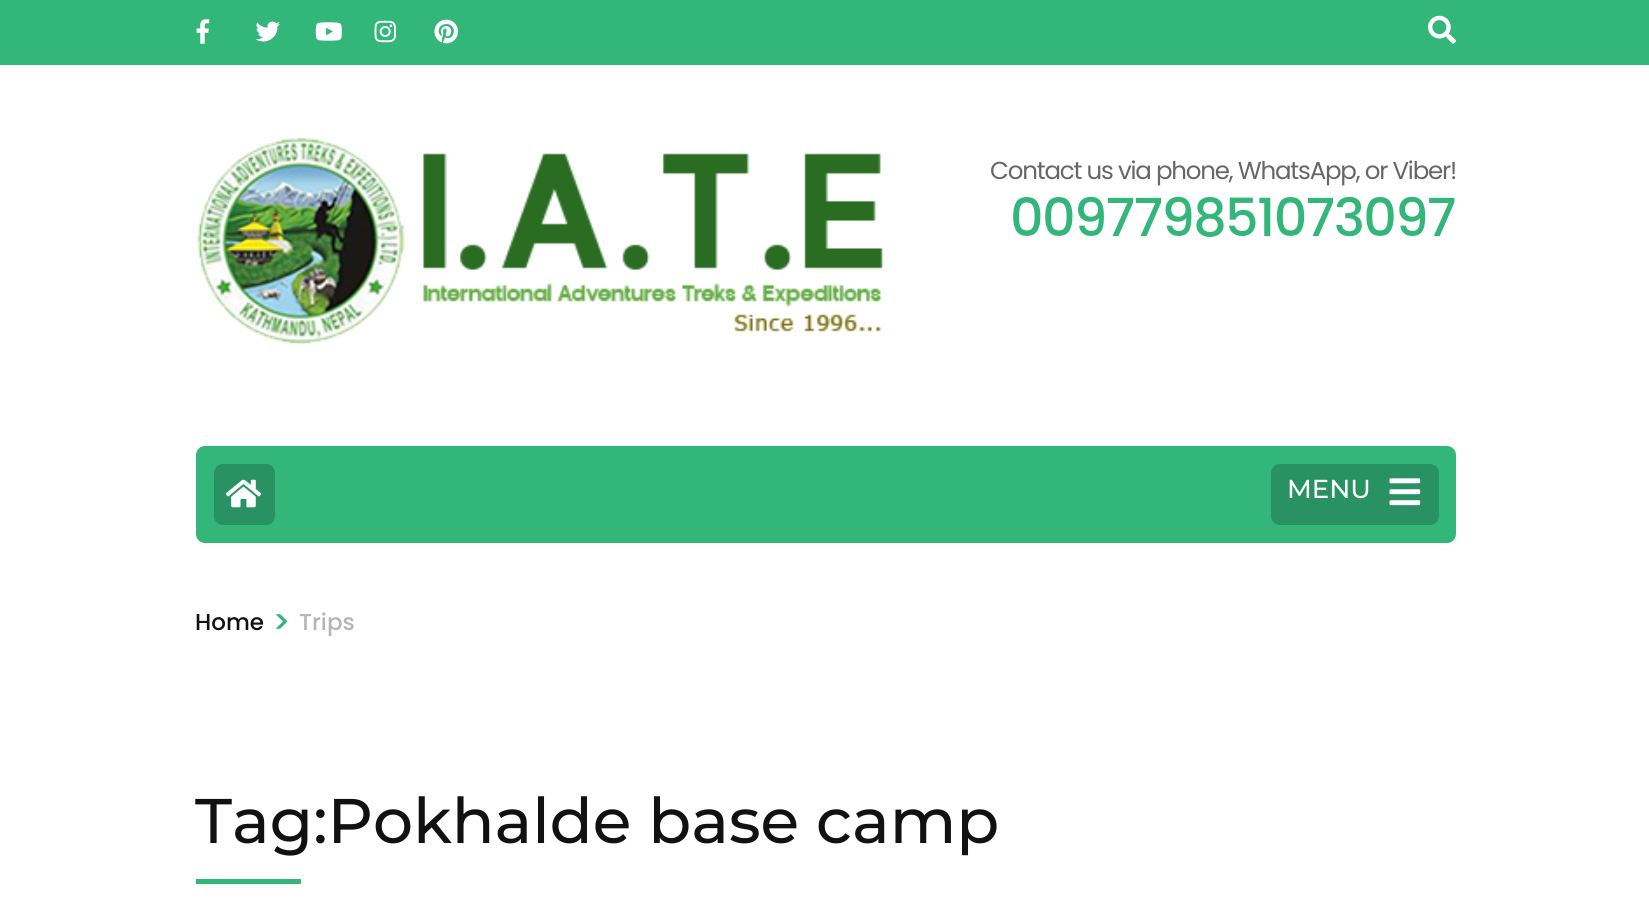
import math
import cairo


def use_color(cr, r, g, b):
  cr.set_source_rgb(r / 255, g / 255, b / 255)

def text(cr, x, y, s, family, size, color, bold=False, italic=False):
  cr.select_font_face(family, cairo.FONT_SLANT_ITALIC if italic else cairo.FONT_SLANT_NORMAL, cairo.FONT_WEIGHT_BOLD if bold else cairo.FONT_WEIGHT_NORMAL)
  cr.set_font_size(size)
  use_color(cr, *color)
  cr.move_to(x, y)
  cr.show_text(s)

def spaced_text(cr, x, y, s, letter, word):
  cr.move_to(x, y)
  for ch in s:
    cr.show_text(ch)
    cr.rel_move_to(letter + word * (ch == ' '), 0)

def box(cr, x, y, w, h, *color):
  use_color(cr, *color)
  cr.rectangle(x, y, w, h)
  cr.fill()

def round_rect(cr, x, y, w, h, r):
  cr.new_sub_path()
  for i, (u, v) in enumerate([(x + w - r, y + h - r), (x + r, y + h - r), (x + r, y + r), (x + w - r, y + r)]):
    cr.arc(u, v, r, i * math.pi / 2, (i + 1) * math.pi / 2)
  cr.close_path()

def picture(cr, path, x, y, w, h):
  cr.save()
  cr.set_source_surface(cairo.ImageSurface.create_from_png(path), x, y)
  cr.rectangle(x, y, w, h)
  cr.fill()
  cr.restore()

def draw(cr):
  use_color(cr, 255, 255, 255)
  cr.paint()
  box(cr, 0, 0, 1649, 65, 50, 182, 122)
  picture(cr, "img_01.png", 196, 19, 14, 25)
  picture(cr, "img_02.png", 255, 21, 25, 21)
  picture(cr, "img_03.png", 315, 22, 27, 19)
  picture(cr, "img_04.png", 374, 20, 22, 23)
  picture(cr, "img_05.png", 434, 19, 25, 25)
  picture(cr, "img_06.png", 1428, 15, 28, 29)
  picture(cr, "img_07.png", 197, 137, 686, 207)
  round_rect(cr, 196, 446, 1260, 97, 9)
  cr.fill()
  use_color(cr, 40, 146, 98)
  round_rect(cr, 214, 464, 61, 61, 9)
  cr.fill()
  picture(cr, "img_08.png", 225, 479, 37, 29)
  round_rect(cr, 1271, 464, 168, 61, 9)
  cr.fill()
  picture(cr, "img_09.png", 1389, 478, 32, 28)
  box(cr, 196, 879, 105, 5, 50, 182, 122)
  cr.select_font_face("Poppins")
  cr.set_font_size(24.5)
  use_color(cr, 102, 102, 102)
  spaced_text(cr, 990, 179, "Contact us via phone, WhatsApp, or Viber!", -1.2, 0)
  cr.select_font_face("Poppins Medium")
  cr.set_font_size(52.5)
  use_color(cr, 50, 182, 122)
  spaced_text(cr, 1010, 236, "009779851073097", -1.6, 0)
  text(cr, 1287, 498, "MENU", "Montserrat Medium", 26, (255, 255, 255))
  text(cr, 195, 630, "Home", "Poppins Medium", 23, (17, 17, 17))
  text(cr, 272, 633, ">", "Poppins Medium", 32, (50, 182, 122))
  text(cr, 299, 630, "Trips", "Poppins Medium", 23, (181, 181, 181))
  text(cr, 195, 843, "Tag:Pokhalde base camp", "Montserrat Medium", 63, (17, 17, 17))


surface = cairo.ImageSurface(cairo.FORMAT_RGB24, 1649, 898)
cr = cairo.Context(surface)
options = cairo.FontOptions()
options.set_hint_metrics(cairo.HINT_METRICS_OFF)
options.set_hint_style(cairo.HINT_STYLE_NONE)
cr.set_font_options(options)
cr.set_miter_limit(4)
draw(cr)
surface.write_to_png("out.png")
